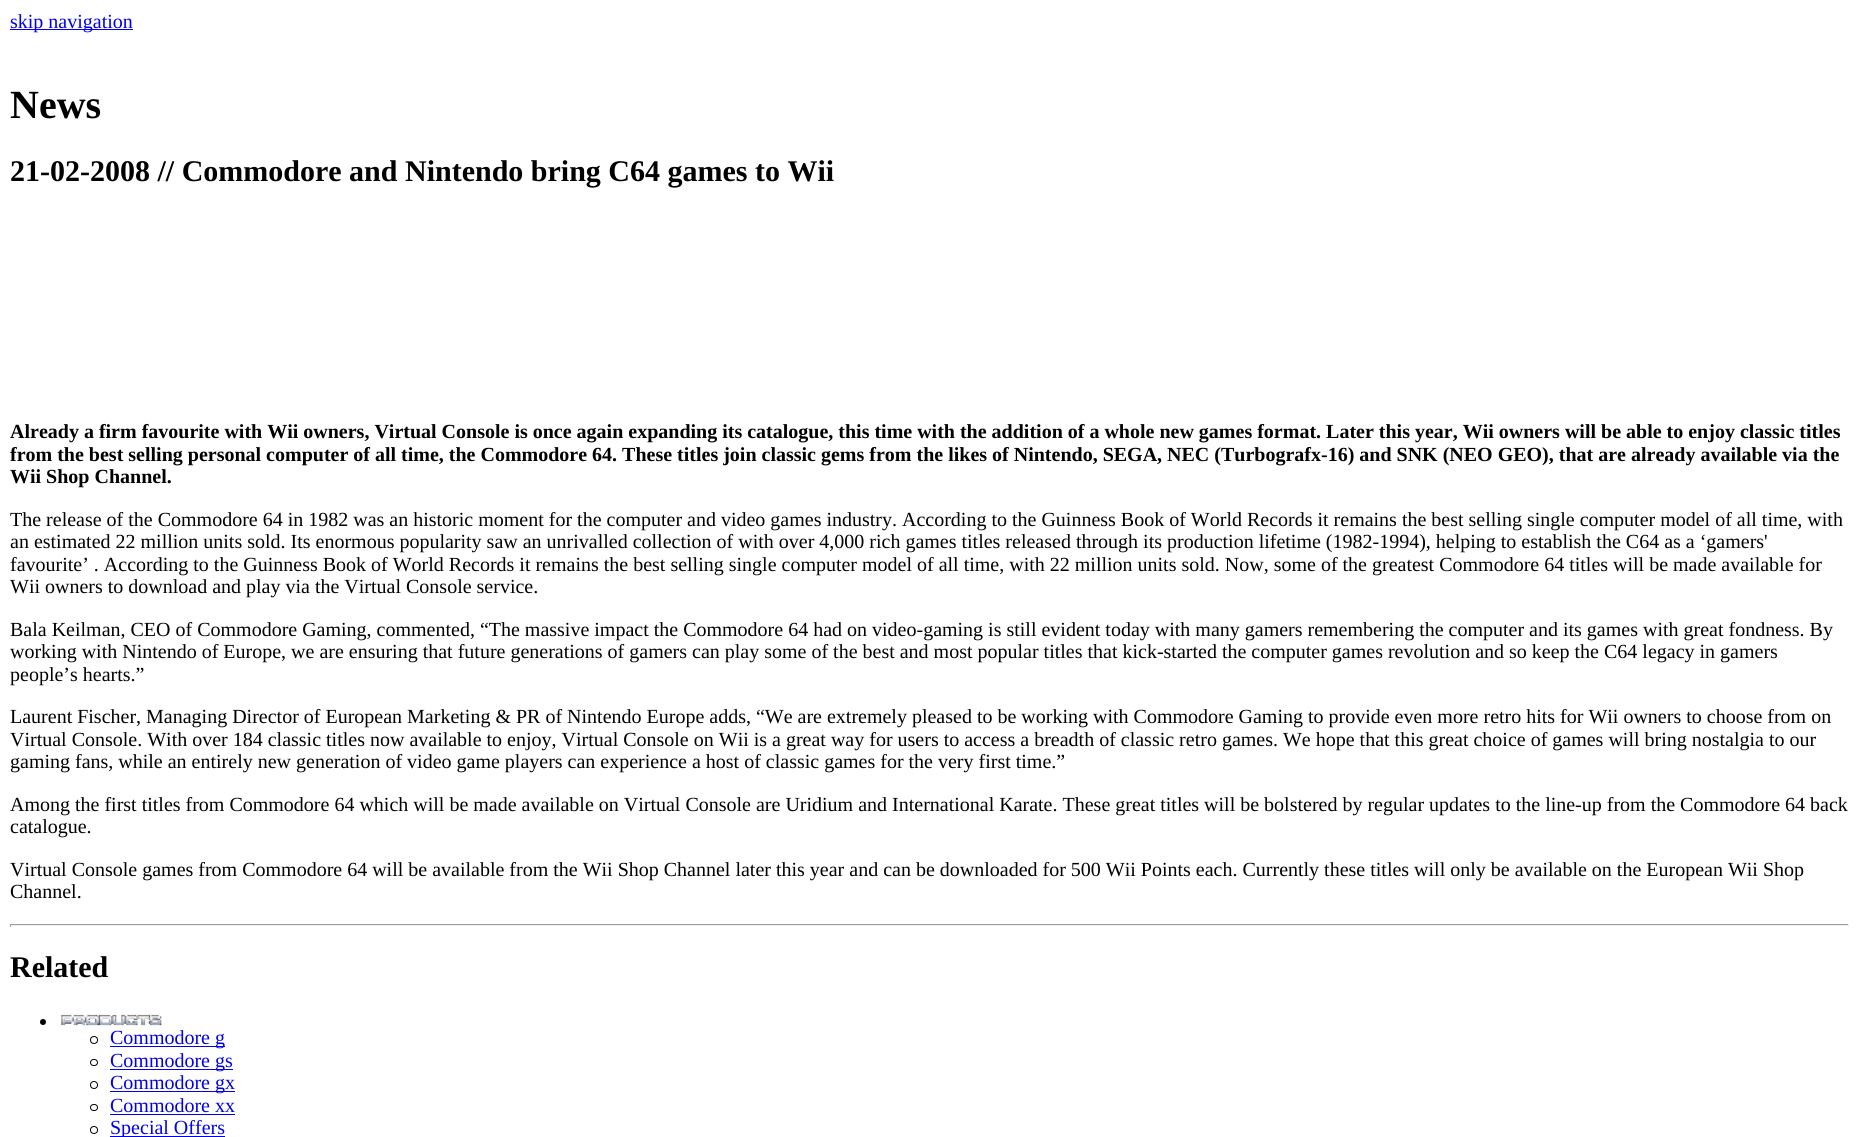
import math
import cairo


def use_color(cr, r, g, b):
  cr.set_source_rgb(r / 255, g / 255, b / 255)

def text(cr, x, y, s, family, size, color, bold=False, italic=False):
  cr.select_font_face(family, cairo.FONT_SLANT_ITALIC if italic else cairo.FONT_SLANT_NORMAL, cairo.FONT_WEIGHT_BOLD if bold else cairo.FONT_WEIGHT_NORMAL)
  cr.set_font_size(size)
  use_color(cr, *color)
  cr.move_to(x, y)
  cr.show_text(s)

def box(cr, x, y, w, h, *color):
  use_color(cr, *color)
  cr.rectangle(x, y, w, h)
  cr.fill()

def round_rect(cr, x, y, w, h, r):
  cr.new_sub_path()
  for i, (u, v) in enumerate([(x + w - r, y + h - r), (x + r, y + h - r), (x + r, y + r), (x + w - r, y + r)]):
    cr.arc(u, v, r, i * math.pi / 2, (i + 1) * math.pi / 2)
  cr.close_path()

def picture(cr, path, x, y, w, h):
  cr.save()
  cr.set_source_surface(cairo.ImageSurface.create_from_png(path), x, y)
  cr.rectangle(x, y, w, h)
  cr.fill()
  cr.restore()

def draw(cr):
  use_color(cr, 255, 255, 255)
  cr.paint()
  box(cr, 10, 29, 123, 1, 0, 0, 238)
  box(cr, 10, 924, 1839, 1, 159, 159, 159)
  box(cr, 1848, 924, 1, 3, 238, 238, 238)
  box(cr, 10, 925, 1839, 1, 238, 238, 238)
  box(cr, 10, 924, 1, 3, 159, 159, 159)
  use_color(cr, 0, 0, 0)
  cr.arc(43, 1022, 3, 0, 2 * math.pi)
  cr.fill()
  picture(cr, "img_01.png", 61, 1014, 101, 12)
  cr.arc(94, 1040, 3.5, 0, 2 * math.pi)
  cr.set_line_width(1)
  cr.stroke()
  box(cr, 110, 1046, 115, 1, 0, 0, 238)
  round_rect(cr, 90.5, 1059.5, 7, 6, 3)
  use_color(cr, 0, 0, 0)
  cr.stroke()
  box(cr, 110, 1069, 123, 1, 0, 0, 238)
  cr.arc(94, 1085, 3.5, 0, 2 * math.pi)
  use_color(cr, 0, 0, 0)
  cr.stroke()
  box(cr, 110, 1091, 125, 1, 0, 0, 238)
  round_rect(cr, 90.5, 1104.5, 7, 6, 3)
  use_color(cr, 0, 0, 0)
  cr.stroke()
  box(cr, 110, 1114, 125, 1, 0, 0, 238)
  cr.arc(94, 1130, 3.5, 0, 2 * math.pi)
  use_color(cr, 0, 0, 0)
  cr.stroke()
  box(cr, 110, 1136, 115, 1, 0, 0, 238)
  text(cr, 10, 28, "skip navigation", "Liberation Serif", 20, (0, 0, 238))
  text(cr, 10, 118, "News", "Liberation Serif", 40, (0, 0, 0), bold=True)
  text(cr, 10, 181, "21-02-2008 // Commodore and Nintendo bring C64 games to Wii", "Liberation Serif", 30, (0, 0, 0), bold=True)
  text(cr, 10, 438, "Already a firm favourite with Wii owners, Virtual Console is once again expanding its catalogue, this time with the addition of a whole new games format. Later this year, Wii owners will be able to enjoy classic titles", "Liberation Serif", 20, (0, 0, 0), bold=True)
  text(cr, 10, 461, "from the best selling personal computer of all time, the Commodore 64. These titles join classic gems from the likes of Nintendo, SEGA, NEC (Turbografx-16) and SNK (NEO GEO), that are already available via the", "Liberation Serif", 20, (0, 0, 0), bold=True)
  text(cr, 10, 483, "Wii Shop Channel.", "Liberation Serif", 20, (0, 0, 0), bold=True)
  text(cr, 10, 526, "The release of the Commodore 64 in 1982 was an historic moment for the computer and video games industry. According to the Guinness Book of World Records it remains the best selling single computer model of all time, with", "Liberation Serif", 20, (0, 0, 0))
  text(cr, 10, 548, "an estimated 22 million units sold. Its enormous popularity saw an unrivalled collection of with over 4,000 rich games titles released through its production lifetime (1982-1994), helping to establish the C64 as a ‘gamers'", "Liberation Serif", 20, (0, 0, 0))
  text(cr, 10, 571, "favourite’ . According to the Guinness Book of World Records it remains the best selling single computer model of all time, with 22 million units sold. Now, some of the greatest Commodore 64 titles will be made available for", "Liberation Serif", 20, (0, 0, 0))
  text(cr, 10, 593, "Wii owners to download and play via the Virtual Console service.", "Liberation Serif", 20, (0, 0, 0))
  text(cr, 10, 636, "Bala Keilman, CEO of Commodore Gaming, commented, “The massive impact the Commodore 64 had on video-gaming is still evident today with many gamers remembering the computer and its games with great fondness. By", "Liberation Serif", 20, (0, 0, 0))
  text(cr, 10, 658, "working with Nintendo of Europe, we are ensuring that future generations of gamers can play some of the best and most popular titles that kick-started the computer games revolution and so keep the C64 legacy in gamers", "Liberation Serif", 20, (0, 0, 0))
  text(cr, 10, 681, "people’s hearts.”", "Liberation Serif", 20, (0, 0, 0))
  text(cr, 10, 723, "Laurent Fischer, Managing Director of European Marketing & PR of Nintendo Europe adds, “We are extremely pleased to be working with Commodore Gaming to provide even more retro hits for Wii owners to choose from on", "Liberation Serif", 20, (0, 0, 0))
  text(cr, 10, 746, "Virtual Console. With over 184 classic titles now available to enjoy, Virtual Console on Wii is a great way for users to access a breadth of classic retro games. We hope that this great choice of games will bring nostalgia to our", "Liberation Serif", 20, (0, 0, 0))
  text(cr, 10, 768, "gaming fans, while an entirely new generation of video game players can experience a host of classic games for the very first time.”", "Liberation Serif", 20, (0, 0, 0))
  text(cr, 10, 811, "Among the first titles from Commodore 64 which will be made available on Virtual Console are Uridium and International Karate. These great titles will be bolstered by regular updates to the line-up from the Commodore 64 back", "Liberation Serif", 20, (0, 0, 0))
  text(cr, 10, 833, "catalogue.", "Liberation Serif", 20, (0, 0, 0))
  text(cr, 10, 876, "Virtual Console games from Commodore 64 will be available from the Wii Shop Channel later this year and can be downloaded for 500 Wii Points each. Currently these titles will only be available on the European Wii Shop", "Liberation Serif", 20, (0, 0, 0))
  text(cr, 10, 898, "Channel.", "Liberation Serif", 20, (0, 0, 0))
  text(cr, 10, 977, "Related", "Liberation Serif", 30, (0, 0, 0), bold=True)
  text(cr, 110, 1044, "Commodore g", "Liberation Serif", 20, (0, 0, 238))
  text(cr, 110, 1067, "Commodore gs", "Liberation Serif", 20, (0, 0, 238))
  text(cr, 110, 1089, "Commodore gx", "Liberation Serif", 20, (0, 0, 238))
  text(cr, 110, 1112, "Commodore xx", "Liberation Serif", 20, (0, 0, 238))
  text(cr, 110, 1134, "Special Offers", "Liberation Serif", 20, (0, 0, 238))


surface = cairo.ImageSurface(cairo.FORMAT_RGB24, 1858, 1137)
cr = cairo.Context(surface)
options = cairo.FontOptions()
options.set_hint_metrics(cairo.HINT_METRICS_OFF)
options.set_hint_style(cairo.HINT_STYLE_NONE)
cr.set_font_options(options)
cr.set_miter_limit(4)
draw(cr)
surface.write_to_png("out.png")
